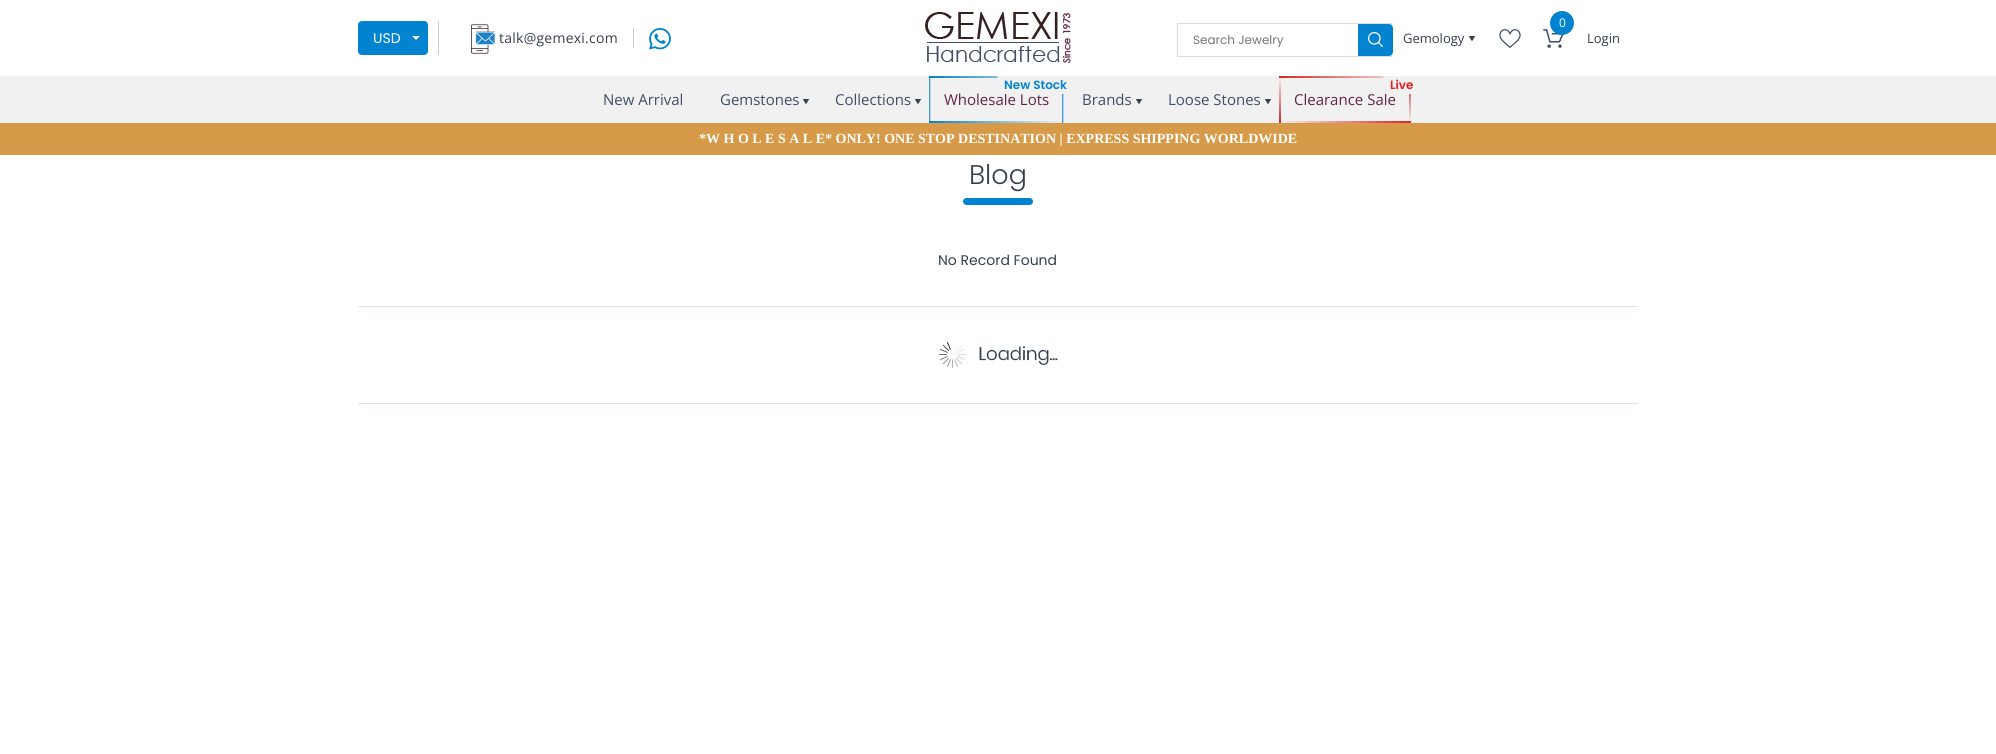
import math
import cairo


def use_color(cr, r, g, b):
  cr.set_source_rgb(r / 255, g / 255, b / 255)

def text(cr, x, y, s, family, size, color, bold=False, italic=False):
  cr.select_font_face(family, cairo.FONT_SLANT_ITALIC if italic else cairo.FONT_SLANT_NORMAL, cairo.FONT_WEIGHT_BOLD if bold else cairo.FONT_WEIGHT_NORMAL)
  cr.set_font_size(size)
  use_color(cr, *color)
  cr.move_to(x, y)
  cr.show_text(s)

def spaced_text(cr, x, y, s, letter, word):
  cr.move_to(x, y)
  for ch in s:
    cr.show_text(ch)
    cr.rel_move_to(letter + word * (ch == ' '), 0)

def box(cr, x, y, w, h, *color):
  use_color(cr, *color)
  cr.rectangle(x, y, w, h)
  cr.fill()

def round_rect(cr, x, y, w, h, r):
  cr.new_sub_path()
  for i, (u, v) in enumerate([(x + w - r, y + h - r), (x + r, y + h - r), (x + r, y + r), (x + w - r, y + r)]):
    cr.arc(u, v, r, i * math.pi / 2, (i + 1) * math.pi / 2)
  cr.close_path()

def picture(cr, path, x, y, w, h):
  cr.save()
  cr.set_source_surface(cairo.ImageSurface.create_from_png(path), x, y)
  cr.rectangle(x, y, w, h)
  cr.fill()
  cr.restore()

def draw(cr):
  use_color(cr, 255, 255, 255)
  cr.paint()
  box(cr, 438, 21, 1, 34, 204, 204, 204)
  use_color(cr, 1, 131, 207)
  round_rect(cr, 358, 21, 70, 34, 4)
  cr.fill()
  use_color(cr, 255, 255, 255)
  cr.new_path()
  cr.move_to(412, 36)
  cr.line_to(420, 36)
  cr.line_to(416, 40)
  cr.close_path()
  cr.fill()
  picture(cr, "img_01.png", 471, 24, 25, 30)
  box(cr, 633, 28, 1, 20, 204, 204, 204)
  picture(cr, "img_02.png", 649, 28, 22, 22)
  picture(cr, "img_03.png", 925, 12, 146, 52)
  cr.rectangle(1177.5, 23.5, 214, 33)
  use_color(cr, 220, 221, 220)
  cr.set_line_width(1)
  cr.stroke()
  use_color(cr, 1, 131, 207)
  cr.new_path()
  cr.move_to(1358, 24)
  cr.line_to(1389, 24)
  cr.curve_to(1391, 24, 1393, 26, 1393, 28)
  cr.line_to(1393, 52)
  cr.curve_to(1393, 54, 1391, 56, 1389, 56)
  cr.line_to(1358, 56)
  cr.close_path()
  cr.fill()
  picture(cr, "img_04.png", 1368, 32, 15, 15)
  picture(cr, "img_05.png", 1543, 29, 21, 19)
  cr.arc(1562, 23, 12, 0, 2 * math.pi)
  cr.fill()
  picture(cr, "img_06.png", 1469, 36, 6, 5)
  picture(cr, "img_07.png", 1499, 29, 22, 19)
  box(cr, 0, 76, 1996, 47, 241, 241, 241)
  picture(cr, "img_08.png", 803, 99, 6, 5)
  picture(cr, "img_08.png", 915, 99, 6, 5)
  gradient = cairo.LinearGradient(1064, 77, 929, 77)
  gradient.add_color_stop_rgba(0, 0.945, 0.945, 0.945, 1)
  gradient.add_color_stop_rgba(1, 0.004, 0.514, 0.812, 1)
  cr.set_source(gradient)
  cr.rectangle(929, 76, 70, 2)
  cr.fill()
  gradient = cairo.LinearGradient(1064, 100, 1062, 100)
  gradient.add_color_stop_rgba(0, 0.004, 0.514, 0.812, 0)
  gradient.add_color_stop_rgba(1, 0.004, 0.514, 0.812, 1)
  cr.set_source(gradient)
  cr.rectangle(1062, 94, 2, 29)
  cr.fill()
  gradient = cairo.LinearGradient(1064, 122, 929, 122)
  gradient.add_color_stop_rgba(0, 0.004, 0.514, 0.812, 0)
  gradient.add_color_stop_rgba(1, 0.004, 0.514, 0.812, 1)
  cr.set_source(gradient)
  cr.rectangle(929, 121, 135, 2)
  cr.fill()
  gradient = cairo.LinearGradient(931, 100, 929, 100)
  gradient.add_color_stop_rgba(0, 0.004, 0.514, 0.812, 0)
  gradient.add_color_stop_rgba(1, 0.004, 0.514, 0.812, 1)
  cr.set_source(gradient)
  cr.rectangle(929, 76, 2, 47)
  cr.fill()
  picture(cr, "img_08.png", 1136, 99, 6, 5)
  picture(cr, "img_08.png", 1265, 99, 6, 5)
  gradient = cairo.LinearGradient(1411, 77, 1279, 77)
  gradient.add_color_stop_rgba(0, 0.945, 0.945, 0.945, 1)
  gradient.add_color_stop_rgba(1, 0.851, 0.149, 0.149, 1)
  cr.set_source(gradient)
  cr.rectangle(1279, 76, 106, 2)
  cr.fill()
  gradient = cairo.LinearGradient(1410, 123, 1410, 76)
  gradient.add_color_stop_rgba(0, 0.945, 0.945, 0.945, 1)
  gradient.add_color_stop_rgba(1, 0.851, 0.149, 0.149, 1)
  cr.set_source(gradient)
  cr.rectangle(1409, 94, 2, 29)
  cr.fill()
  gradient = cairo.LinearGradient(1279, 122, 1411, 122)
  gradient.add_color_stop_rgba(0, 0.851, 0.149, 0.149, 0)
  gradient.add_color_stop_rgba(1, 0.851, 0.149, 0.149, 1)
  cr.set_source(gradient)
  cr.rectangle(1279, 121, 132, 2)
  cr.fill()
  gradient = cairo.LinearGradient(1280, 76, 1280, 123)
  gradient.add_color_stop_rgba(0, 0.851, 0.149, 0.149, 0)
  gradient.add_color_stop_rgba(1, 0.851, 0.149, 0.149, 1)
  cr.set_source(gradient)
  cr.rectangle(1279, 76, 2, 47)
  cr.fill()
  box(cr, 0, 123, 1996, 32, 214, 154, 72)
  use_color(cr, 1, 131, 207)
  round_rect(cr, 963, 198, 70, 7, 3.5)
  cr.fill()
  box(cr, 358, 306, 1280, 1, 219, 228, 232)
  box(cr, 358, 403, 1280, 1, 219, 228, 232)
  picture(cr, "img_09.png", 939, 342, 119, 26)
  text(cr, 373, 43, "USD", "Poppins", 14, (255, 255, 255))
  cr.select_font_face("Open Sans")
  use_color(cr, 53, 64, 78)
  spaced_text(cr, 499, 43, "talk@gemexi.com", 0.25, 0)
  text(cr, 1193, 44, "Search Jewelry", "Poppins", 12, (117, 117, 117))
  text(cr, 1559, 27, "0", "Open Sans", 12, (255, 255, 255))
  text(cr, 1403, 43, "Gemology", "Open Sans", 13, (53, 64, 78))
  text(cr, 1587, 43, "Login", "Open Sans", 13, (53, 64, 78))
  text(cr, 603, 105, "New Arrival", "Open Sans", 15, (64, 78, 104))
  text(cr, 720, 105, "Gemstones", "Open Sans", 15, (64, 78, 104))
  text(cr, 835, 105, "Collections", "Open Sans", 15, (64, 78, 104))
  text(cr, 944, 105, "Wholesale Lots", "Open Sans", 15, (100, 35, 70))
  use_color(cr, 241, 241, 241)
  round_rect(cr, 997, 76, 77, 18, 2)
  cr.fill()
  text(cr, 1004, 89, "New Stock", "Poppins SemiBold", 12, (1, 131, 207))
  text(cr, 1082, 105, "Brands", "Open Sans", 15, (64, 78, 104))
  text(cr, 1168, 105, "Loose Stones", "Open Sans", 15, (64, 78, 104))
  text(cr, 1294, 105, "Clearance Sale", "Open Sans", 15, (100, 35, 70))
  use_color(cr, 241, 241, 241)
  round_rect(cr, 1383, 76, 38, 18, 2)
  cr.fill()
  text(cr, 1390, 89, "Live", "Poppins SemiBold", 12, (236, 27, 34))
  text(cr, 699, 143, "*W H O L E S A L E* ONLY! ONE STOP DESTINATION | EXPRESS SHIPPING WORLDWIDE", "Liberation Serif", 14, (255, 255, 255), bold=True)
  text(cr, 969, 184, "Blog", "Poppins Light", 27, (53, 64, 78))
  text(cr, 938, 265, "No Record Found", "Poppins", 14, (53, 64, 78))


surface = cairo.ImageSurface(cairo.FORMAT_RGB24, 1996, 754)
cr = cairo.Context(surface)
options = cairo.FontOptions()
options.set_hint_metrics(cairo.HINT_METRICS_OFF)
options.set_hint_style(cairo.HINT_STYLE_NONE)
cr.set_font_options(options)
cr.set_miter_limit(4)
draw(cr)
surface.write_to_png("out.png")
